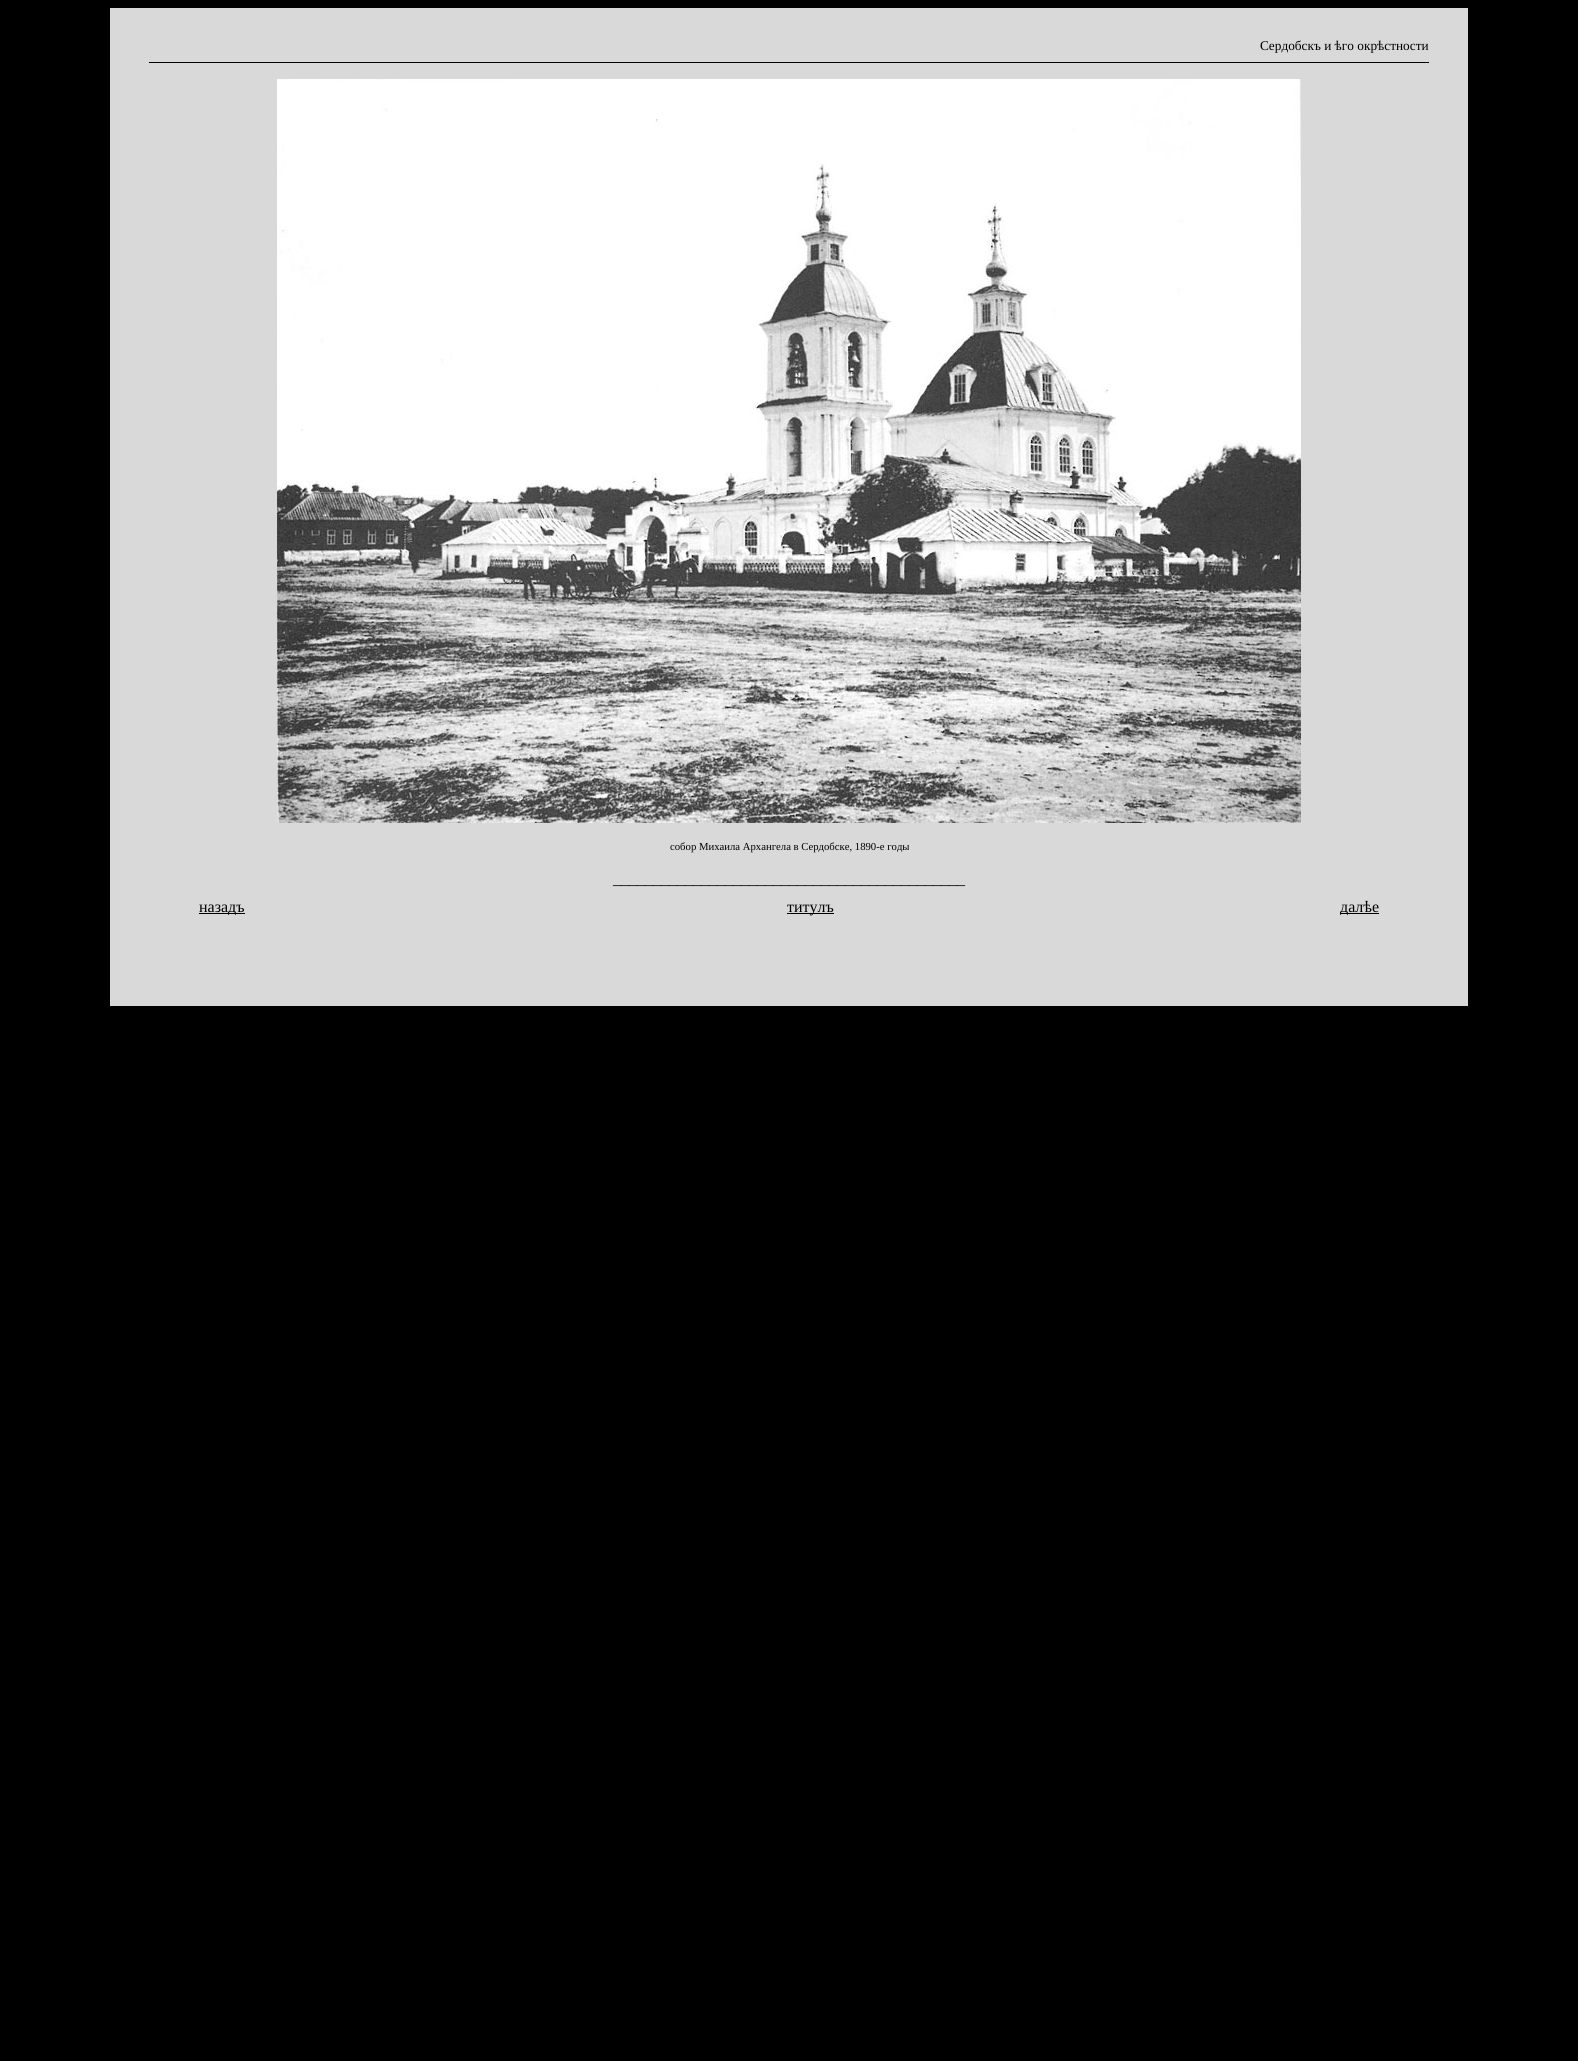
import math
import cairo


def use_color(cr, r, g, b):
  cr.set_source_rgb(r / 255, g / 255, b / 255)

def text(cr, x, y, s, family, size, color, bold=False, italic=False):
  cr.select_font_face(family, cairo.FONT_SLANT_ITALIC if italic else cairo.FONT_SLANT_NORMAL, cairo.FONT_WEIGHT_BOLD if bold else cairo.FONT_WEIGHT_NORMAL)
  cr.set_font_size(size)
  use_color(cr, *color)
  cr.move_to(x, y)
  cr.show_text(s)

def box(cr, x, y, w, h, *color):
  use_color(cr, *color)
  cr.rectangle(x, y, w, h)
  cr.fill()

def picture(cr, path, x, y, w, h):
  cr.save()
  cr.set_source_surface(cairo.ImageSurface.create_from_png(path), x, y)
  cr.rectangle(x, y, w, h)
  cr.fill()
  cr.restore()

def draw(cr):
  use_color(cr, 0, 0, 0)
  cr.paint()
  box(cr, 110, 8, 1358, 998, 217, 217, 217)
  box(cr, 149, 62, 1280, 1, 0, 0, 0)
  picture(cr, "img_01.png", 277, 79, 1024, 744)
  box(cr, 199, 913, 46, 1, 0, 0, 0)
  box(cr, 787, 913, 47, 1, 0, 0, 0)
  box(cr, 1340, 913, 39, 1, 0, 0, 0)
  text(cr, 1260, 50, "Сердобскъ и ѣго окрѣстности", "Liberation Serif", 13.3, (0, 0, 0))
  text(cr, 670, 850, "собор Михаила Архангела в Сердобске, 1890-е годы", "Liberation Serif", 10.7, (0, 0, 0))
  text(cr, 613, 884, "____________________________________________", "Liberation Serif", 16, (0, 0, 0))
  text(cr, 199, 912, "назадъ", "Liberation Serif", 16, (0, 0, 0))
  text(cr, 787, 912, "титулъ", "Liberation Serif", 16, (0, 0, 0))
  text(cr, 1340, 912, "далѣе", "Liberation Serif", 16, (0, 0, 0))


surface = cairo.ImageSurface(cairo.FORMAT_RGB24, 1578, 2061)
cr = cairo.Context(surface)
options = cairo.FontOptions()
options.set_hint_metrics(cairo.HINT_METRICS_OFF)
options.set_hint_style(cairo.HINT_STYLE_NONE)
cr.set_font_options(options)
cr.set_miter_limit(4)
draw(cr)
surface.write_to_png("out.png")
